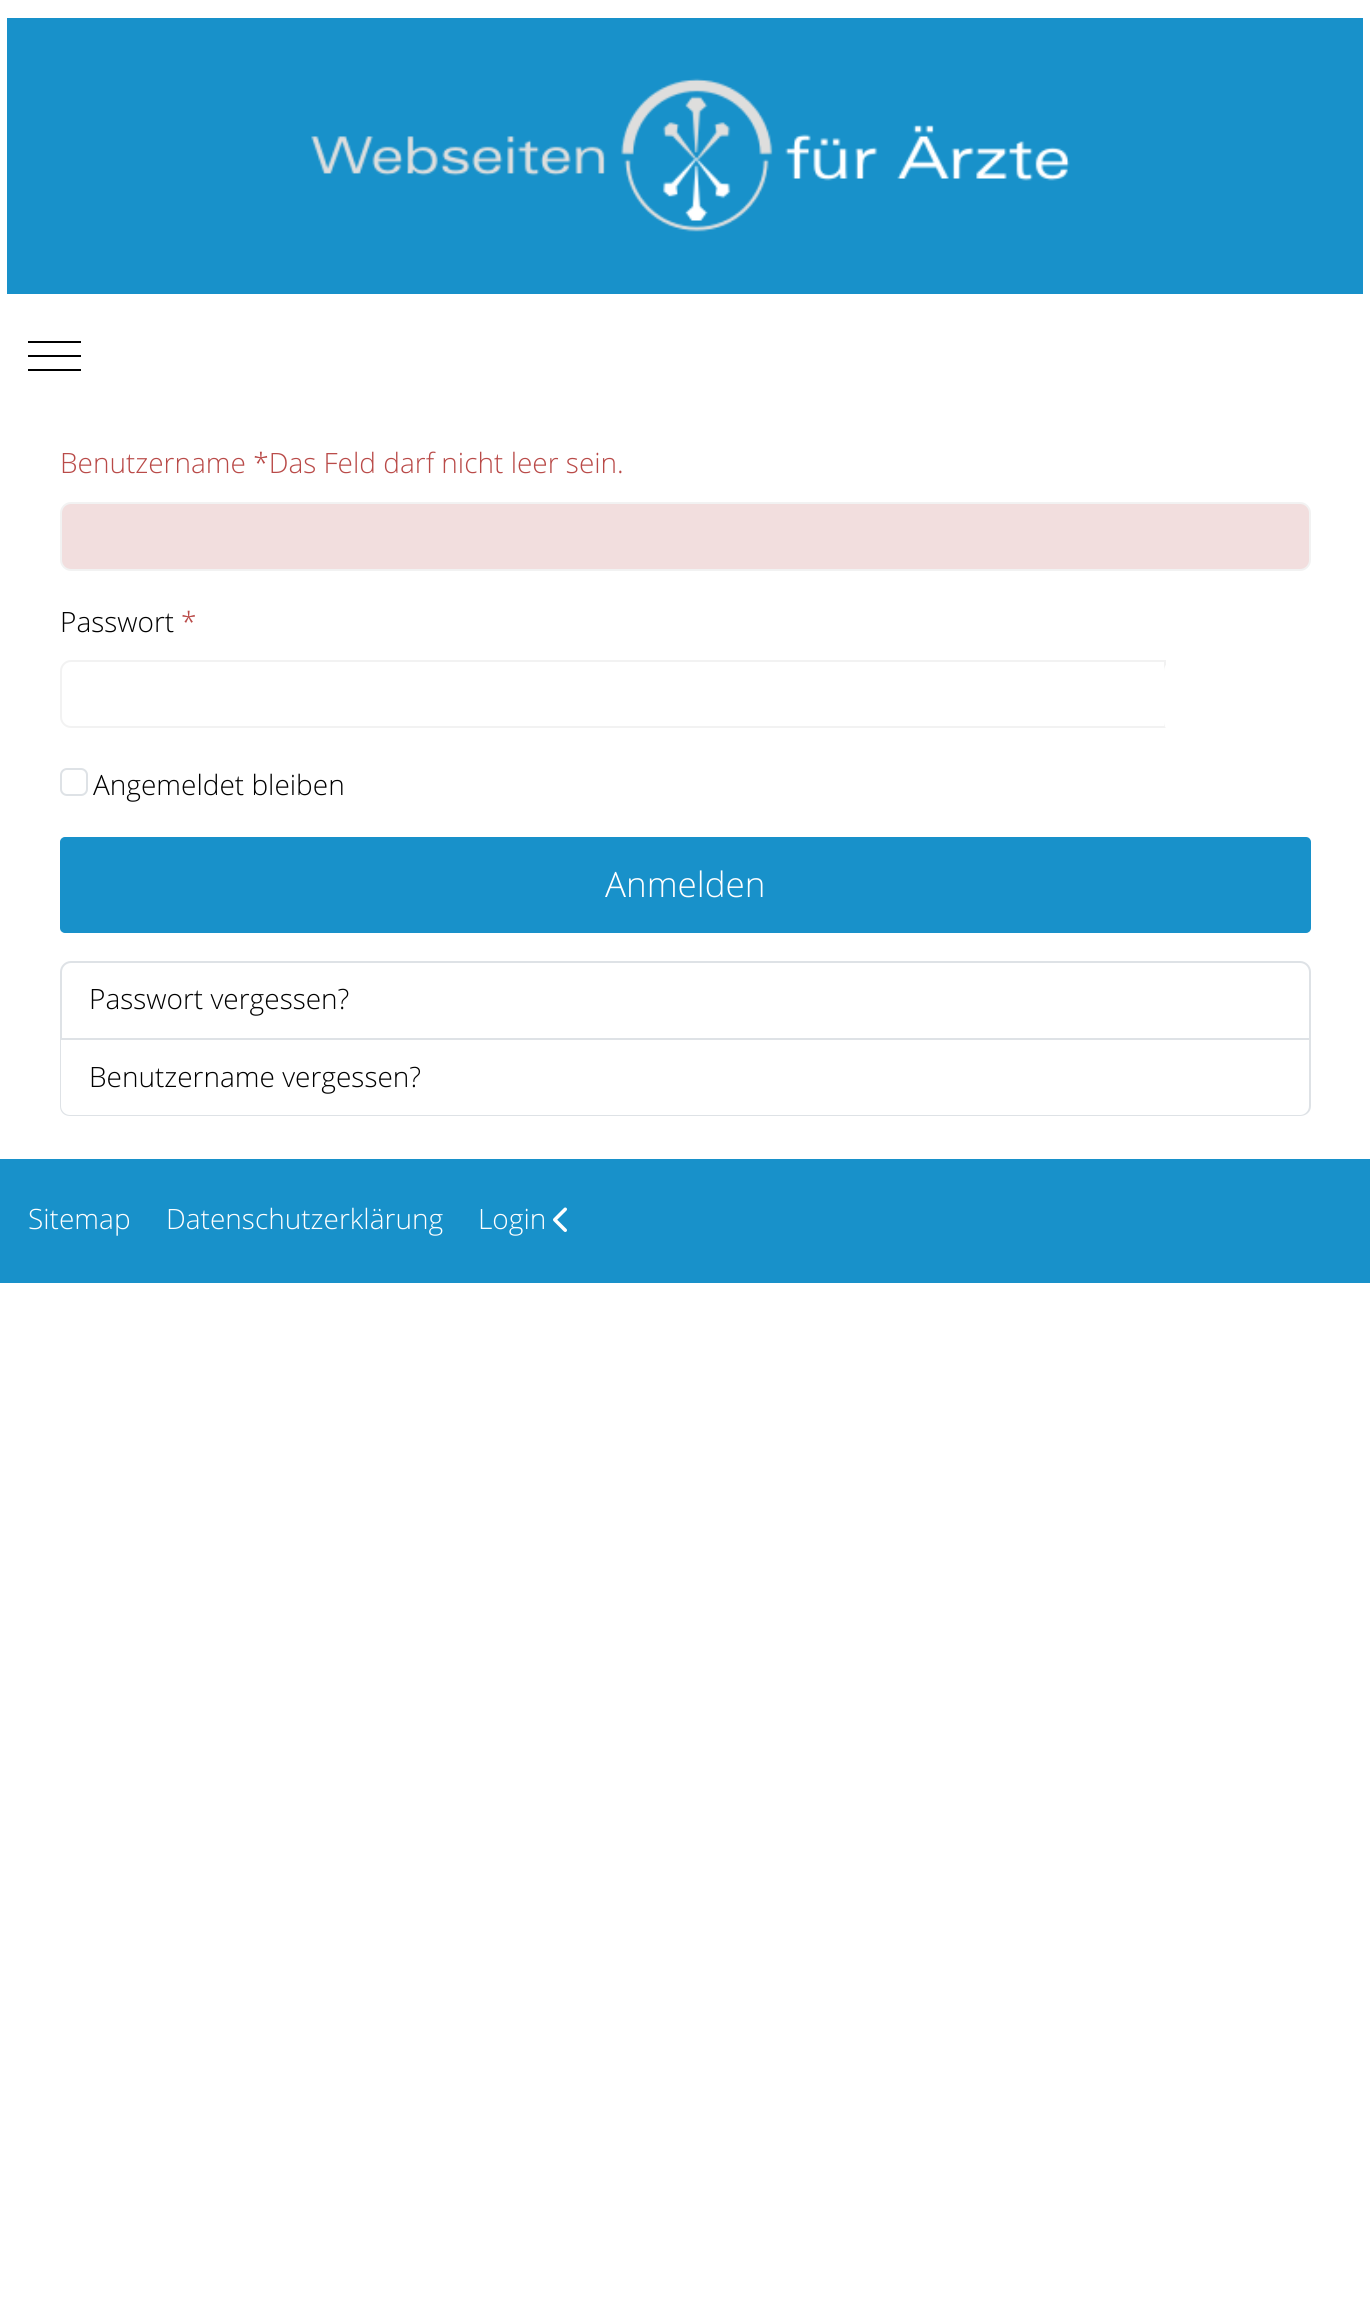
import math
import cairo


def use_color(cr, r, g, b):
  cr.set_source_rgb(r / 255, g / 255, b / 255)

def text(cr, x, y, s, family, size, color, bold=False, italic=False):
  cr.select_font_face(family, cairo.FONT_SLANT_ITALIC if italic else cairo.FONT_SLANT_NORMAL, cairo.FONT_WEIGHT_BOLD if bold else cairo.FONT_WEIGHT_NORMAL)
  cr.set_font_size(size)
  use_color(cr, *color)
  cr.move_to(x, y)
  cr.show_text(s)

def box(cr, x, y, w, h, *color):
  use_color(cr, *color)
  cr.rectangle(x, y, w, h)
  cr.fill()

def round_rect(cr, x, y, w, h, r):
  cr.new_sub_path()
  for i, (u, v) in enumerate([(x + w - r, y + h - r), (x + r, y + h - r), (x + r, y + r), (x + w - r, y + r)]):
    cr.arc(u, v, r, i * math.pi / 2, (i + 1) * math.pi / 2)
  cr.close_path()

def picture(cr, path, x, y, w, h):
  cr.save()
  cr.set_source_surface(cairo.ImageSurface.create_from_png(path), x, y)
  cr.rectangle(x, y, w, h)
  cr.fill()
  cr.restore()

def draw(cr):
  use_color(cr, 255, 255, 255)
  cr.paint()
  box(cr, 7, 18, 1356, 276, 24, 145, 202)
  picture(cr, "img_01.png", 311, 78, 759, 154)
  box(cr, 28, 355, 53, 2, 0, 0, 0)
  box(cr, 28, 341, 53, 2, 0, 0, 0)
  box(cr, 28, 369, 53, 2, 0, 0, 0)
  use_color(cr, 242, 222, 222)
  round_rect(cr, 61, 503, 1249, 67, 10)
  cr.fill_preserve()
  use_color(cr, 242, 242, 242)
  cr.stroke()
  cr.new_path()
  cr.move_to(71, 661)
  cr.line_to(1165, 661)
  cr.line_to(1165, 727)
  cr.line_to(71, 727)
  cr.curve_to(65.5, 727, 61, 722.5, 61, 717)
  cr.line_to(61, 671)
  cr.curve_to(61, 665.5, 65.5, 661, 71, 661)
  cr.close_path()
  cr.stroke()
  use_color(cr, 255, 255, 255)
  round_rect(cr, 1164, 660, 147, 73, 11)
  cr.fill()
  round_rect(cr, 61, 769, 26, 26, 6)
  use_color(cr, 222, 226, 230)
  cr.stroke()
  use_color(cr, 24, 145, 202)
  round_rect(cr, 61, 838, 1249, 94, 4)
  cr.fill_preserve()
  cr.stroke()
  cr.new_path()
  cr.move_to(71, 962)
  cr.line_to(1300, 962)
  cr.curve_to(1305.5, 962, 1310, 966.5, 1310, 972)
  cr.line_to(1310, 1039)
  cr.line_to(61, 1039)
  cr.line_to(61, 972)
  cr.curve_to(61, 966.5, 65.5, 962, 71, 962)
  cr.close_path()
  use_color(cr, 222, 226, 230)
  cr.stroke()
  cr.set_fill_rule(cairo.FILL_RULE_EVEN_ODD)
  cr.new_path()
  cr.move_to(60, 1040)
  cr.line_to(1311, 1040)
  cr.line_to(1311, 1106)
  cr.curve_to(1311, 1112, 1306, 1116, 1300, 1116)
  cr.line_to(70, 1116)
  cr.curve_to(64, 1116, 60, 1112, 60, 1106)
  cr.close_path()
  cr.move_to(61, 1040)
  cr.line_to(1309, 1040)
  cr.line_to(1309, 1106)
  cr.curve_to(1309, 1111, 1305, 1115, 1300, 1115)
  cr.line_to(70, 1115)
  cr.curve_to(65, 1115, 61, 1111, 61, 1106)
  cr.close_path()
  cr.fill()
  box(cr, 0, 1159, 1370, 124, 24, 145, 202)
  picture(cr, "img_02.png", 553, 1207, 14, 25)
  text(cr, 60, 473, "Benutzername *Das Feld darf nicht leer sein.", "Open Sans Light", 28, (185, 74, 72))
  text(cr, 60, 632, "Passwort", "Open Sans Light", 28, (0, 0, 0))
  text(cr, 181, 632, "*", "Open Sans Light", 28, (185, 74, 72))
  text(cr, 93, 795, "Angemeldet bleiben", "Open Sans Light", 28, (0, 0, 0))
  text(cr, 605, 897, "Anmelden", "Open Sans Light", 35, (255, 255, 255))
  text(cr, 89, 1009, "Passwort vergessen?", "Open Sans Light", 28, (0, 0, 0))
  text(cr, 89, 1087, "Benutzername vergessen?", "Open Sans Light", 28, (0, 0, 0))
  text(cr, 28, 1229, "Sitemap", "Open Sans Light", 28, (255, 255, 255))
  text(cr, 166, 1229, "Datenschutzerklärung", "Open Sans Light", 28, (255, 255, 255))
  text(cr, 478, 1229, "Login", "Open Sans Light", 28, (255, 255, 255))


surface = cairo.ImageSurface(cairo.FORMAT_RGB24, 1370, 2303)
cr = cairo.Context(surface)
options = cairo.FontOptions()
options.set_hint_metrics(cairo.HINT_METRICS_OFF)
options.set_hint_style(cairo.HINT_STYLE_NONE)
cr.set_font_options(options)
cr.set_miter_limit(4)
draw(cr)
surface.write_to_png("out.png")
